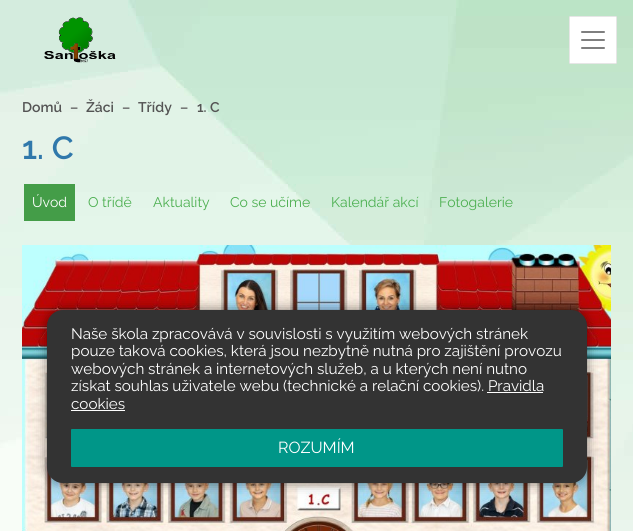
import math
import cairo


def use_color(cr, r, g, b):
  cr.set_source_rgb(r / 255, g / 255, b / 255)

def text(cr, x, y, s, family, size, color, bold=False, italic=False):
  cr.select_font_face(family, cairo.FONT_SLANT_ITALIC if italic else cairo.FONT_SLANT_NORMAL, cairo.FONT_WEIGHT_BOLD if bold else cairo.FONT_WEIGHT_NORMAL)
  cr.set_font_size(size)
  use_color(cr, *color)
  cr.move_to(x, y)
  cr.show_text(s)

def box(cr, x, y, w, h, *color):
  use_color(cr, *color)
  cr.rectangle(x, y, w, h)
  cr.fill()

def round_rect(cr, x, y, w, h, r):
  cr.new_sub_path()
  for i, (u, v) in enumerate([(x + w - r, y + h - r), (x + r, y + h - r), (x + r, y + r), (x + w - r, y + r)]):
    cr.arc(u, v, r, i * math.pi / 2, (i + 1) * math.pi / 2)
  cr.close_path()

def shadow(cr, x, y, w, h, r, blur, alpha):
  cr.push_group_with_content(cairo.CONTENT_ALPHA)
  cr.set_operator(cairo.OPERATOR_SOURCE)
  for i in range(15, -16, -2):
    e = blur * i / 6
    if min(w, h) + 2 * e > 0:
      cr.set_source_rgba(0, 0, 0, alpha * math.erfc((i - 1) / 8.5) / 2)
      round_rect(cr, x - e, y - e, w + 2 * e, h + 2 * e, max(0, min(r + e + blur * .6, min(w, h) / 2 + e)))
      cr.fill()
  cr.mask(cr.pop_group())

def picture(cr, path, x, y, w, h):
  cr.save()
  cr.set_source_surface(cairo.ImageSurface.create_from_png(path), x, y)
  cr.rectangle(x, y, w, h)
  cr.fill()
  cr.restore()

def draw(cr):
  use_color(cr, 255, 255, 255)
  cr.paint()
  picture(cr, "img_01.png", 0, 0, 633, 531)
  picture(cr, "img_02.png", 44, 17, 72, 46)
  use_color(cr, 255, 255, 255)
  round_rect(cr, 569, 16, 48, 48, 1)
  cr.fill()
  cr.rectangle(569.5, 16.5, 47, 47)
  cr.set_source_rgba(0, 0, 0, 0.1)
  cr.set_line_width(1)
  cr.stroke()
  picture(cr, "img_03.png", 581, 31, 24, 18)
  box(cr, 24, 184, 51, 37, 68, 157, 72)
  picture(cr, "img_04.png", 22, 245, 589, 286)
  use_color(cr, 0, 0, 0)
  shadow(cr, 47, 310, 540, 173, 16, 6, 0.5)
  use_color(cr, 51, 51, 51)
  round_rect(cr, 47, 310, 540, 173, 16)
  cr.fill()
  box(cr, 487, 392, 56, 1, 255, 255, 255)
  box(cr, 71, 410, 54, 1, 255, 255, 255)
  use_color(cr, 0, 150, 136)
  round_rect(cr, 71, 429, 492, 38, 1)
  cr.fill()
  text(cr, 22, 112, "Domů", "Raleway SemiBold", 14, (84, 84, 84))
  text(cr, 70, 112, "–", "Raleway SemiBold", 14, (102, 102, 102))
  text(cr, 86, 112, "Žáci", "Raleway SemiBold", 14, (84, 84, 84))
  text(cr, 122, 112, "–", "Raleway SemiBold", 14, (102, 102, 102))
  text(cr, 138, 112, "Třídy", "Raleway SemiBold", 14, (84, 84, 84))
  text(cr, 180, 112, "–", "Raleway SemiBold", 14, (102, 102, 102))
  text(cr, 197, 112, "1. C", "Raleway SemiBold", 14, (84, 84, 84))
  text(cr, 22, 159, "1. C", "Raleway SemiBold", 32, (48, 120, 171))
  text(cr, 32, 207, "Úvod", "Raleway", 14, (255, 255, 255))
  text(cr, 88, 207, "O třídě", "Raleway", 14, (76, 175, 80))
  text(cr, 153, 207, "Aktuality", "Raleway", 14, (76, 175, 80))
  text(cr, 230, 207, "Co se učíme", "Raleway", 14, (76, 175, 80))
  text(cr, 331, 207, "Kalendář akcí", "Raleway", 14, (76, 175, 80))
  text(cr, 439, 207, "Fotogalerie", "Raleway", 14, (76, 175, 80))
  text(cr, 71, 339, "Naše škola zpracovává v souvislosti s využitím webových stránek", "Raleway", 15.2, (255, 255, 255))
  text(cr, 71, 356, "pouze taková cookies, která jsou nezbytně nutná pro zajištění provozu", "Raleway", 15.2, (255, 255, 255))
  text(cr, 71, 374, "webových stránek a internetových služeb, a u kterých není nutno", "Raleway", 15.2, (255, 255, 255))
  text(cr, 71, 391, "získat souhlas uživatele webu (technické a relační cookies). Pravidla", "Raleway", 15.2, (255, 255, 255))
  text(cr, 71, 409, "cookies", "Raleway", 15.2, (255, 255, 255))
  text(cr, 278, 453, "ROZUMÍM", "Raleway", 16, (255, 255, 255))


surface = cairo.ImageSurface(cairo.FORMAT_RGB24, 633, 531)
cr = cairo.Context(surface)
options = cairo.FontOptions()
options.set_hint_metrics(cairo.HINT_METRICS_OFF)
options.set_hint_style(cairo.HINT_STYLE_NONE)
cr.set_font_options(options)
cr.set_miter_limit(4)
draw(cr)
surface.write_to_png("out.png")
